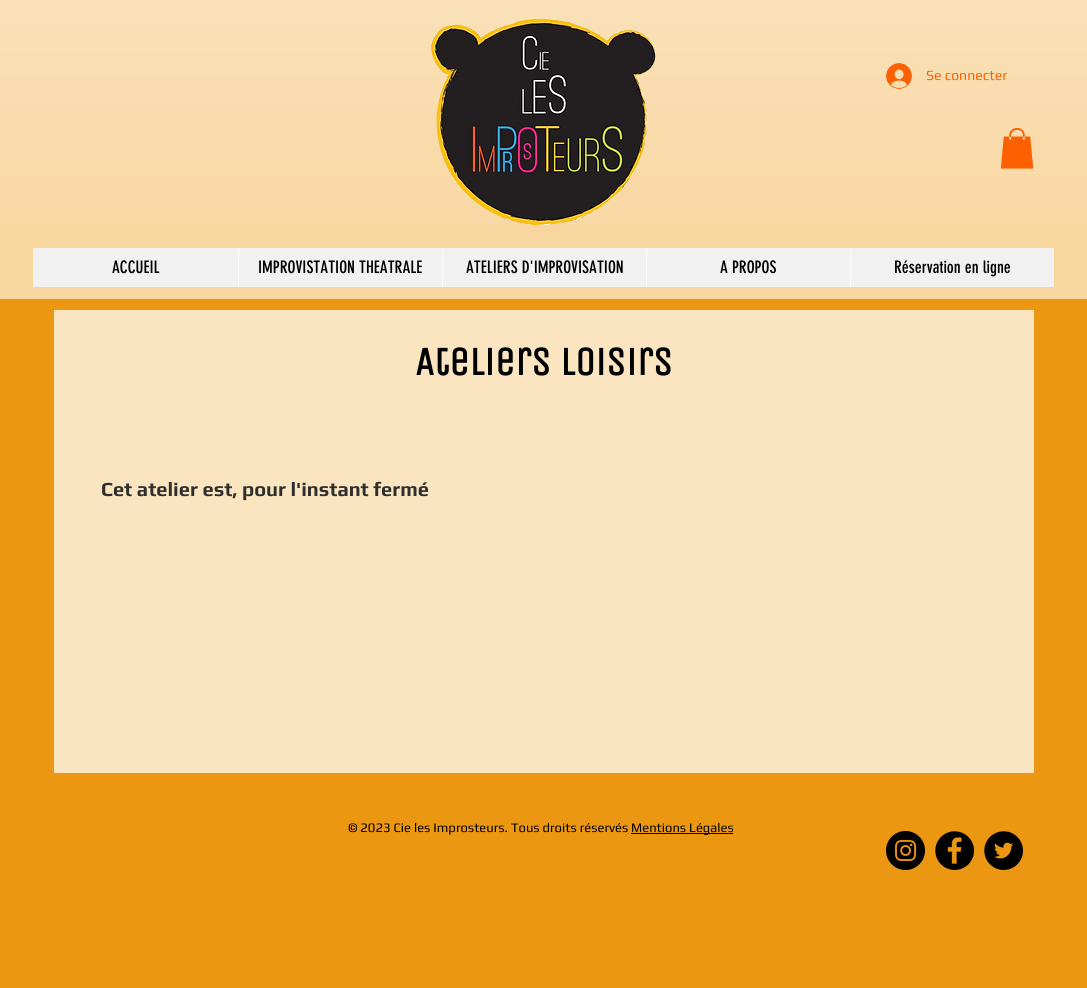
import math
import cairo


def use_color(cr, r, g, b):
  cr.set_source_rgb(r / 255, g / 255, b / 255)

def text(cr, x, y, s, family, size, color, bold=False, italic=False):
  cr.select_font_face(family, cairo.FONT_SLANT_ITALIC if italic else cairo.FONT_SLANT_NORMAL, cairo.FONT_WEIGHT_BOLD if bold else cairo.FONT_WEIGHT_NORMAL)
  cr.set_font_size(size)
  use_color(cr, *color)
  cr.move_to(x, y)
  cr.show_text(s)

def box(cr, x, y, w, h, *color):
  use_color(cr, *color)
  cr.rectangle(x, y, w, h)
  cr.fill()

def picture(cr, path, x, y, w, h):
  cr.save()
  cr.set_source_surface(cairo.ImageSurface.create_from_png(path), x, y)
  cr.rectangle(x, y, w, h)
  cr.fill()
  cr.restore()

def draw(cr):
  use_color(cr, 236, 151, 18)
  cr.paint()
  box(cr, 0, 0, 1087, 299, 248, 214, 160)
  picture(cr, "img_01.png", 0, 0, 1087, 224)
  picture(cr, "img_02.png", 431, 19, 225, 206)
  picture(cr, "img_03.png", 886, 63, 26, 26)
  picture(cr, "img_04.png", 1000, 128, 34, 41)
  box(cr, 33, 248, 1021, 39, 241, 241, 241)
  box(cr, 238, 248, 1, 39, 255, 255, 255)
  box(cr, 442, 248, 1, 39, 255, 255, 255)
  box(cr, 646, 248, 1, 39, 255, 255, 255)
  box(cr, 850, 248, 1, 39, 255, 255, 255)
  box(cr, 54, 310, 980, 463, 251, 229, 192)
  box(cr, 631, 833, 102, 1, 0, 0, 0)
  picture(cr, "img_05.png", 886, 831, 39, 39)
  picture(cr, "img_06.png", 935, 831, 39, 39)
  picture(cr, "img_07.png", 984, 831, 39, 39)
  text(cr, 926, 80, "Se connecter", "Play", 14, (252, 96, 0))
  text(cr, 112, 273, "ACCUEIL", "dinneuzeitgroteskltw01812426", 17, (0, 0, 0))
  text(cr, 258, 273, "IMPROVISTATION THEATRALE", "dinneuzeitgroteskltw01812426", 17, (0, 0, 0))
  text(cr, 466, 273, "ATELIERS D'IMPROVISATION", "dinneuzeitgroteskltw01812426", 17, (0, 0, 0))
  text(cr, 720, 273, "A PROPOS", "dinneuzeitgroteskltw01812426", 17, (0, 0, 0))
  text(cr, 894, 273, "Réservation en ligne", "dinneuzeitgroteskltw01812426", 17, (0, 0, 0))
  text(cr, 415, 375, "Ateliers loisirs", "Unica One", 40, (0, 0, 0), bold=True)
  text(cr, 101, 496, "Cet atelier est, pour l'instant fermé", "Play", 20, (47, 46, 46), bold=True)
  text(cr, 348, 832, "© 2023 Cie les Improsteurs. Tous droits réservés", "Play", 13, (0, 0, 0))
  text(cr, 631, 832, "Mentions Légales", "Play", 13, (0, 0, 0))


surface = cairo.ImageSurface(cairo.FORMAT_RGB24, 1087, 988)
cr = cairo.Context(surface)
options = cairo.FontOptions()
options.set_hint_metrics(cairo.HINT_METRICS_OFF)
options.set_hint_style(cairo.HINT_STYLE_NONE)
cr.set_font_options(options)
cr.set_miter_limit(4)
draw(cr)
surface.write_to_png("out.png")
